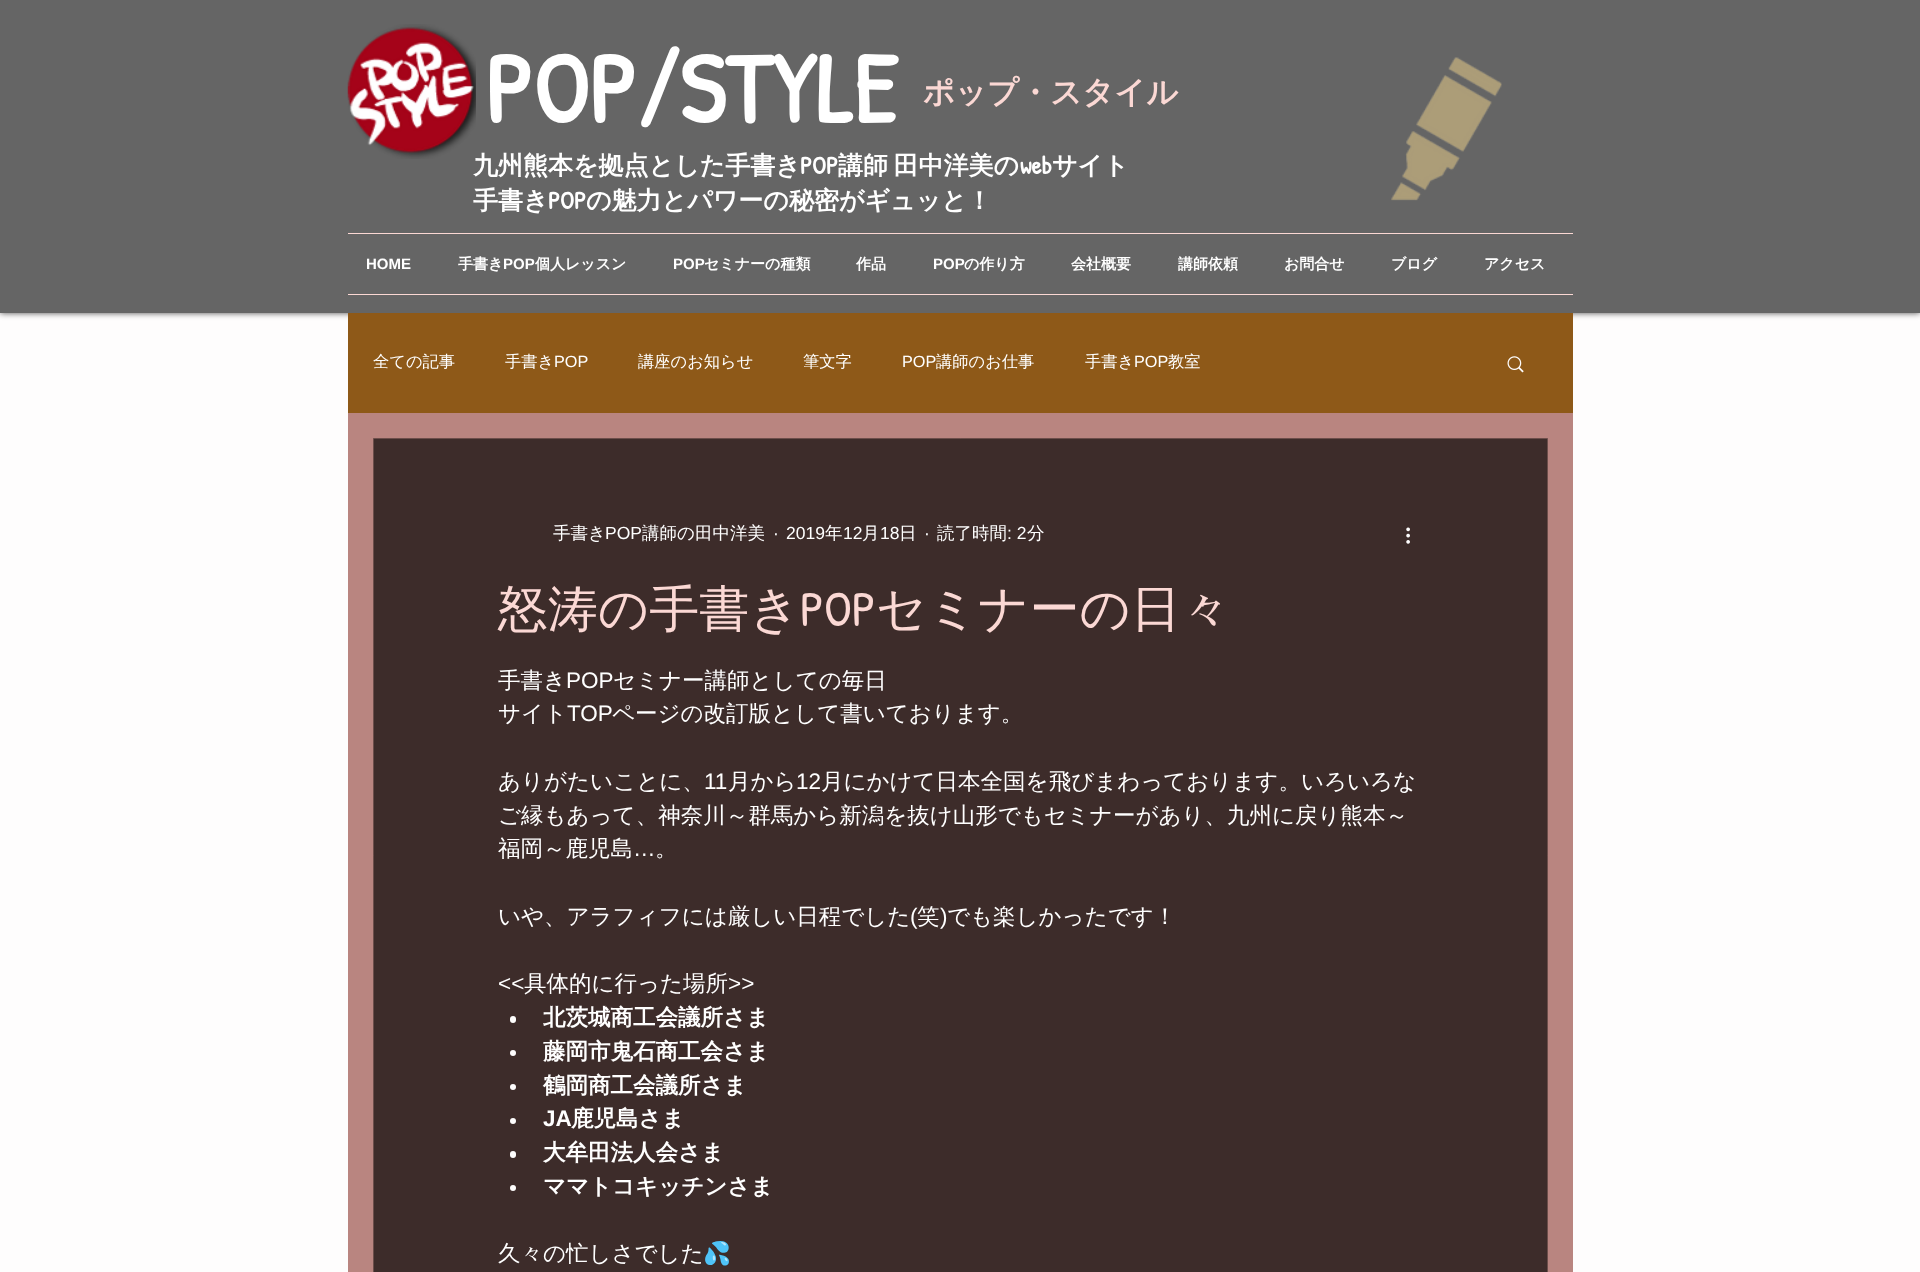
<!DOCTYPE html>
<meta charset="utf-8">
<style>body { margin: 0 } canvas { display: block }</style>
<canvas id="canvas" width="1920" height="1272"></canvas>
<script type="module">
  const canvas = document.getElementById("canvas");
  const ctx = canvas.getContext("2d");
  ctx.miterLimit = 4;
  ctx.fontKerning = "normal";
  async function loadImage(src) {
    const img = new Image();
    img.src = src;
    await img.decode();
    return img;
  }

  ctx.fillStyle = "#fefdfd";
  ctx.fillRect(0, 0, 1920, 1272);
  ctx.fillStyle = "rgba(0, 0, 0, 0.7)";
  ctx.filter = "blur(3px)";
  ctx.beginPath();
  ctx.rect(0, 0, 1920, 313);
  ctx.fill();
  ctx.filter = "none";
  ctx.fillStyle = "#656565";
  ctx.fillRect(0, 0, 1920, 313);
  ctx.drawImage(await loadImage("img1.png"), 347, 24, 129, 135);
  ctx.font = "bold 100px Patrick Hand";
  ctx.fillStyle = "#ffffff";
  ctx.fillText("POP/STYLE", 485, 123);
  ctx.font = "bold 31.25px WenQuanYi Zen Hei";
  ctx.fillStyle = "#fbd8d4";
  ctx.fillText("ポップ・スタイル", 923, 103);
  ctx.drawImage(await loadImage("img2.png"), 1391, 57, 111, 144);
  ctx.font = "bold 25px WenQuanYi Zen Hei";
  ctx.fillStyle = "#ffffff";
  ctx.fillText("九州熊本を拠点とした手書き", 473, 174);
  ctx.font = "bold 25px Patrick Hand";
  ctx.fillText("POP", 800, 174);
  ctx.wordSpacing = "-2px";
  ctx.font = "bold 25px WenQuanYi Zen Hei";
  ctx.fillText("講師 田中洋美の", 838, 174);
  ctx.wordSpacing = "0px";
  ctx.font = "bold 25px Patrick Hand";
  ctx.fillText("web", 1020, 174);
  ctx.font = "bold 25px WenQuanYi Zen Hei";
  ctx.fillText("サイト", 1052, 174);
  ctx.fillText("手書き", 473, 209);
  ctx.font = "bold 25px Patrick Hand";
  ctx.fillText("POP", 548, 209);
  ctx.font = "bold 25px WenQuanYi Zen Hei";
  ctx.fillText("の魅力とパワーの秘密がギュッと！", 586, 209);
  ctx.fillStyle = "#fbd8d4";
  ctx.fillRect(348, 233, 1225, 1);
  ctx.fillRect(348, 294, 1225, 1);
  ctx.font = "bold 15px Liberation Sans";
  ctx.fillStyle = "#ffffff";
  ctx.fillText("HOME", 366, 269);
  ctx.font = "bold 15px WenQuanYi Zen Hei";
  ctx.fillText("手書き", 458, 269);
  ctx.font = "bold 15px Liberation Sans";
  ctx.fillText("POP", 503, 269);
  ctx.font = "bold 15px WenQuanYi Zen Hei";
  ctx.fillText("個人レッスン", 535, 269);
  ctx.font = "bold 15px Liberation Sans";
  ctx.fillText("POP", 673, 269);
  ctx.font = "bold 15px WenQuanYi Zen Hei";
  ctx.fillText("セミナーの種類", 704, 269);
  ctx.fillText("作品", 856, 269);
  ctx.font = "bold 15px Liberation Sans";
  ctx.fillText("POP", 933, 269);
  ctx.font = "bold 15px WenQuanYi Zen Hei";
  ctx.fillText("の作り方", 964, 269);
  ctx.fillText("会社概要", 1071, 269);
  ctx.fillText("講師依頼", 1178, 269);
  ctx.fillText("お問合せ", 1284, 269);
  ctx.fillText("ブログ", 1391, 269);
  ctx.fillText("アクセス", 1484, 269);
  ctx.fillStyle = "#b98580";
  ctx.fillRect(348, 413, 1225, 859);
  ctx.fillStyle = "#8e5918";
  ctx.fillRect(348, 313, 1225, 100);
  ctx.font = "500 16.25px WenQuanYi Zen Hei";
  ctx.fillStyle = "#ffffff";
  ctx.fillText("全ての記事", 373, 367);
  ctx.fillText("手書き", 505, 367);
  ctx.font = "16.25px Liberation Sans";
  ctx.fillText("POP", 554, 367);
  ctx.font = "500 16.25px WenQuanYi Zen Hei";
  ctx.fillText("講座のお知らせ", 638, 367);
  ctx.fillText("筆文字", 803, 367);
  ctx.font = "16.25px Liberation Sans";
  ctx.fillText("POP", 902, 367);
  ctx.font = "500 16.25px WenQuanYi Zen Hei";
  ctx.fillText("講師のお仕事", 936, 367);
  ctx.fillText("手書き", 1085, 367);
  ctx.font = "16.25px Liberation Sans";
  ctx.fillText("POP", 1134, 367);
  ctx.font = "500 16.25px WenQuanYi Zen Hei";
  ctx.fillText("教室", 1168, 367);
  ctx.drawImage(await loadImage("img3.png"), 1507, 356, 17, 17);
  ctx.fillStyle = "#3d2c2a";
  ctx.beginPath();
  ctx.rect(373.5, 438.5, 1174, 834);
  ctx.fill();
  ctx.strokeStyle = "#6c4e4a";
  ctx.stroke();
  ctx.font = "500 17.5px WenQuanYi Zen Hei";
  ctx.fillStyle = "#ffffff";
  ctx.fillText("手書き", 553, 539);
  ctx.font = "17.5px Liberation Sans";
  ctx.fillText("POP", 605, 539);
  ctx.font = "500 17.5px WenQuanYi Zen Hei";
  ctx.fillText("講師の田中洋美", 642, 539);
  ctx.font = "17.5px Liberation Sans";
  ctx.fillText("·", 773, 539);
  ctx.fillText("2019", 786, 539);
  ctx.font = "500 17.5px WenQuanYi Zen Hei";
  ctx.fillText("年", 825, 539);
  ctx.font = "17.5px Liberation Sans";
  ctx.fillText("12", 843, 539);
  ctx.font = "500 17.5px WenQuanYi Zen Hei";
  ctx.fillText("月", 862, 539);
  ctx.font = "17.5px Liberation Sans";
  ctx.fillText("18", 880, 539);
  ctx.font = "500 17.5px WenQuanYi Zen Hei";
  ctx.fillText("日", 899, 539);
  ctx.font = "17.5px Liberation Sans";
  ctx.fillText("·", 924, 539);
  ctx.font = "500 17.5px WenQuanYi Zen Hei";
  ctx.fillText("読了時間", 937, 539);
  ctx.font = "17.5px Liberation Sans";
  ctx.fillText(": 2", 1007, 539);
  ctx.font = "500 17.5px WenQuanYi Zen Hei";
  ctx.fillText("分", 1027, 539);
  ctx.drawImage(await loadImage("img4.png"), 1406, 527, 4, 17);
  ctx.font = "500 50px WenQuanYi Zen Hei";
  ctx.fillStyle = "#fbd8d4";
  ctx.fillText("怒涛の手書き", 498, 626);
  ctx.font = "50px Patrick Hand";
  ctx.fillText("POP", 800, 626);
  ctx.font = "500 50px WenQuanYi Zen Hei";
  ctx.fillText("セミナーの日々", 876, 626);
  ctx.font = "500 22.5px WenQuanYi Zen Hei";
  ctx.fillStyle = "#ffffff";
  ctx.fillText("手書き", 498, 688);
  ctx.font = "22.5px Liberation Sans";
  ctx.fillText("POP", 566, 688);
  ctx.font = "500 22.5px WenQuanYi Zen Hei";
  ctx.fillText("セミナー講師としての毎日", 613, 688);
  ctx.fillText("サイト", 498, 721);
  ctx.font = "22.5px Liberation Sans";
  ctx.fillText("TOP", 567, 721);
  ctx.font = "500 22.5px WenQuanYi Zen Hei";
  ctx.fillText("ページの改訂版として書いております。", 612, 721);
  ctx.fillText("ありがたいことに、", 498, 789);
  ctx.font = "22.5px Liberation Sans";
  ctx.fillText("11", 704, 789);
  ctx.font = "500 22.5px WenQuanYi Zen Hei";
  ctx.fillText("月から", 728, 789);
  ctx.font = "22.5px Liberation Sans";
  ctx.fillText("12", 796, 789);
  ctx.font = "500 22.5px WenQuanYi Zen Hei";
  ctx.fillText("月にかけて日本全国を飛びまわっております。いろいろな", 821, 789);
  ctx.fillText("ご縁もあって、神奈川～群馬から新潟を抜け山形でもセミナーがあり、九州に戻り熊本～", 498, 823);
  ctx.fillText("福岡～鹿児島", 498, 856);
  ctx.font = "22.5px Liberation Sans";
  ctx.fillText("…", 633, 856);
  ctx.font = "500 22.5px WenQuanYi Zen Hei";
  ctx.fillText("。", 655, 856);
  ctx.fillText("いや、アラフィフには厳しい日程でした", 498, 924);
  ctx.font = "22.5px Liberation Sans";
  ctx.fillText("(", 910, 924);
  ctx.font = "500 22.5px WenQuanYi Zen Hei";
  ctx.fillText("笑", 917, 924);
  ctx.font = "22.5px Liberation Sans";
  ctx.fillText(")", 940, 924);
  ctx.font = "500 22.5px WenQuanYi Zen Hei";
  ctx.fillText("でも楽しかったです！", 947, 924);
  ctx.font = "22.5px Liberation Sans";
  ctx.fillText("<<", 498, 991);
  ctx.font = "500 22.5px WenQuanYi Zen Hei";
  ctx.fillText("具体的に行った場所", 524, 991);
  ctx.font = "22.5px Liberation Sans";
  ctx.fillText(">>", 728, 991);
  ctx.fillStyle = "#fefdfd";
  ctx.beginPath();
  ctx.roundRect(510, 1016, 6, 7, 3);
  ctx.fill();
  ctx.font = "bold 22.5px WenQuanYi Zen Hei";
  ctx.fillStyle = "#ffffff";
  ctx.fillText("北茨城商工会議所さま", 543, 1025);
  ctx.fillStyle = "#fefdfd";
  ctx.beginPath();
  ctx.arc(513, 1053, 3, 0, Math.PI * 2);
  ctx.fill();
  ctx.fillStyle = "#ffffff";
  ctx.fillText("藤岡市鬼石商工会さま", 543, 1059);
  ctx.fillStyle = "#fefdfd";
  ctx.beginPath();
  ctx.arc(513, 1087, 3, 0, Math.PI * 2);
  ctx.fill();
  ctx.fillStyle = "#ffffff";
  ctx.fillText("鶴岡商工会議所さま", 543, 1093);
  ctx.fillStyle = "#fefdfd";
  ctx.beginPath();
  ctx.arc(513, 1121, 3, 0, Math.PI * 2);
  ctx.fill();
  ctx.font = "bold 22.5px Liberation Sans";
  ctx.fillStyle = "#ffffff";
  ctx.fillText("JA", 543, 1126);
  ctx.font = "bold 22.5px WenQuanYi Zen Hei";
  ctx.fillText("鹿児島さま", 571, 1126);
  ctx.fillStyle = "#fefdfd";
  ctx.beginPath();
  ctx.roundRect(510, 1151, 6, 7, 3);
  ctx.fill();
  ctx.fillStyle = "#ffffff";
  ctx.fillText("大牟田法人会さま", 543, 1160);
  ctx.fillStyle = "#fefdfd";
  ctx.beginPath();
  ctx.arc(513, 1188, 3, 0, Math.PI * 2);
  ctx.fill();
  ctx.fillStyle = "#ffffff";
  ctx.fillText("ママトコキッチンさま", 543, 1194);
  ctx.font = "500 22.5px WenQuanYi Zen Hei";
  ctx.fillText("久々の忙しさでした", 498, 1261);
  ctx.font = "22.5px Noto Color Emoji";
  ctx.fillText("💦", 703, 1261);
</script>
